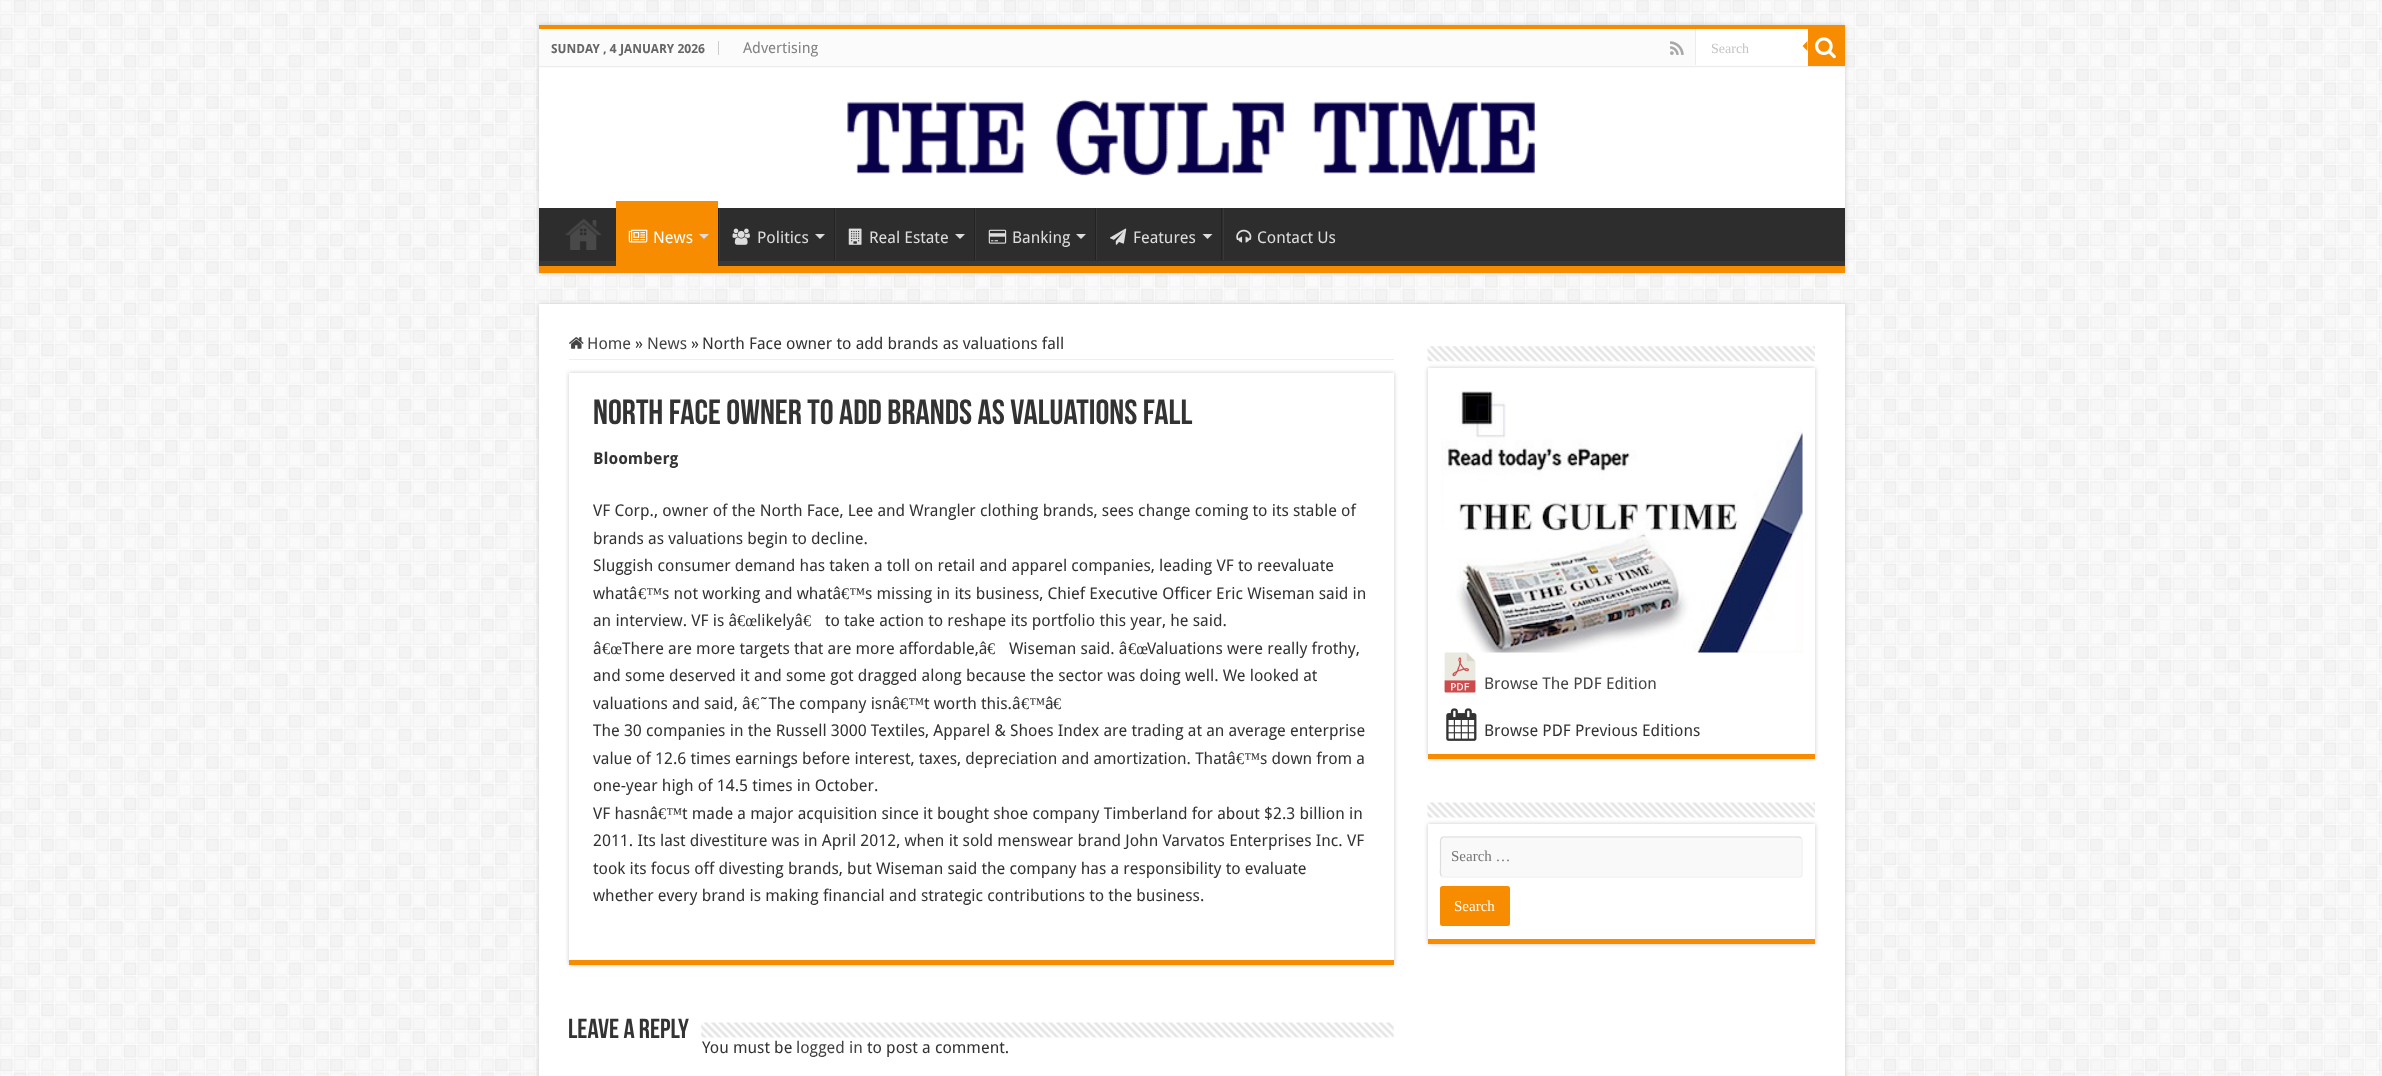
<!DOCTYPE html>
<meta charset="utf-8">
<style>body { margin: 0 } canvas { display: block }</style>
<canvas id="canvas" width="2382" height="1076"></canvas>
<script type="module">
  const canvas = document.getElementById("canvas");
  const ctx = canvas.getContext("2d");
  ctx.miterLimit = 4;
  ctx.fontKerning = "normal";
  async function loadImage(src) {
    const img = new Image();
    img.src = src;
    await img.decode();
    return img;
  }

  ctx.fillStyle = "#ffffff";
  ctx.fillRect(0, 0, 2382, 1076);
  ctx.drawImage(await loadImage("img1.png"), 0, 0, 2382, 1076);
  ctx.fillStyle = "#cacaca";
  ctx.filter = "blur(2px)";
  ctx.beginPath();
  ctx.rect(539, 25, 1306, 248);
  ctx.fill();
  ctx.filter = "none";
  ctx.fillStyle = "#ffffff";
  ctx.fillRect(539, 68, 1306, 140);
  ctx.fillStyle = "#f88c00";
  ctx.fillRect(539, 25, 1306, 4);
  ctx.fillStyle = "#fbfbfb";
  ctx.fillRect(539, 29, 1306, 39);
  ctx.fillStyle = "#ececec";
  ctx.fillRect(539, 66, 1306, 1);
  ctx.fillStyle = "#cccccc";
  ctx.fillRect(718, 41, 1, 14);
  ctx.font = "bold 12.5px Droid Sans";
  ctx.fillStyle = "#666666";
  ctx.fillText("SUNDAY , 4 JANUARY 2026", 551, 53);
  ctx.font = "15px Droid Sans";
  ctx.fillStyle = "#838383";
  ctx.fillText("Advertising", 743, 53);
  ctx.drawImage(await loadImage("img2.png"), 1670, 41, 14, 14);
  ctx.fillStyle = "#ffffff";
  ctx.fillRect(1696, 29, 112, 36);
  ctx.fillStyle = "#ececec";
  ctx.fillRect(1695, 29, 1, 36);
  ctx.font = "14px Liberation Serif";
  ctx.fillStyle = "#c5c5c5";
  ctx.fillText("Search", 1711, 53);
  ctx.fillStyle = "#f88c00";
  ctx.fillRect(1808, 29, 37, 37);
  ctx.drawImage(await loadImage("img3.png"), 1815, 37, 21, 22);
  ctx.beginPath();
  ctx.moveTo(1807.5, 41);
  ctx.lineTo(1807.5, 51);
  ctx.lineTo(1802.5, 46);
  ctx.closePath();
  ctx.fill();
  ctx.drawImage(await loadImage("img4.png"), 847, 99, 688, 77);
  ctx.fillStyle = "#2d2d2d";
  ctx.fillRect(539, 208, 1306, 53);
  ctx.save();
  ctx.beginPath();
  ctx.rect(539, 208, 1306, 58);
  ctx.clip();
  ctx.fillStyle = "#393939";
  ctx.beginPath();
  ctx.moveTo(415, 84);
  ctx.lineTo(1969, 84);
  ctx.lineTo(1969, 390);
  ctx.lineTo(415, 390);
  ctx.closePath();
  ctx.moveTo(538, 200);
  ctx.lineTo(1844, 200);
  ctx.bezierCurveTo(1844, 200, 1845, 201, 1845, 201);
  ctx.lineTo(1845, 260);
  ctx.bezierCurveTo(1845, 261, 1844, 261, 1844, 261);
  ctx.lineTo(538, 261);
  ctx.bezierCurveTo(537, 261, 536, 261, 536, 260);
  ctx.lineTo(536, 201);
  ctx.bezierCurveTo(536, 201, 537, 200, 538, 200);
  ctx.closePath();
  ctx.fill("evenodd");
  ctx.restore();
  ctx.fillStyle = "#f88c00";
  ctx.fillRect(539, 266, 1306, 7);
  ctx.drawImage(await loadImage("img5.png"), 565, 218, 37, 32);
  ctx.fillRect(616, 201, 102, 65);
  ctx.drawImage(await loadImage("img6.png"), 628, 229, 20, 14);
  ctx.font = "16.25px Droid Sans";
  ctx.fillStyle = "#ffffff";
  ctx.fillText("News", 653, 243);
  ctx.fillStyle = "#dddddd";
  ctx.beginPath();
  ctx.moveTo(699, 234);
  ctx.lineTo(709, 234);
  ctx.lineTo(704, 239);
  ctx.closePath();
  ctx.fill();
  ctx.fillStyle = "#222222";
  ctx.fillRect(718, 208, 1, 52);
  ctx.fillStyle = "#383838";
  ctx.fillRect(719, 208, 1, 52);
  ctx.drawImage(await loadImage("img7.png"), 732, 228, 18, 17);
  ctx.fillStyle = "#dddddd";
  ctx.fillText("Politics", 757, 243);
  ctx.beginPath();
  ctx.moveTo(815, 234);
  ctx.lineTo(825, 234);
  ctx.lineTo(820, 239);
  ctx.closePath();
  ctx.fill();
  ctx.fillStyle = "#222222";
  ctx.fillRect(834, 208, 1, 52);
  ctx.fillStyle = "#383838";
  ctx.fillRect(835, 208, 1, 52);
  ctx.drawImage(await loadImage("img8.png"), 848, 228, 14, 17);
  ctx.fillStyle = "#dddddd";
  ctx.fillText("Real Estate", 869, 243);
  ctx.beginPath();
  ctx.moveTo(955, 234);
  ctx.lineTo(965, 234);
  ctx.lineTo(960, 239);
  ctx.closePath();
  ctx.fill();
  ctx.fillStyle = "#222222";
  ctx.fillRect(974, 208, 1, 52);
  ctx.fillStyle = "#383838";
  ctx.fillRect(975, 208, 1, 52);
  ctx.drawImage(await loadImage("img9.png"), 988, 229, 19, 15);
  ctx.fillStyle = "#dddddd";
  ctx.fillText("Banking", 1012, 243);
  ctx.beginPath();
  ctx.moveTo(1076, 234);
  ctx.lineTo(1086, 234);
  ctx.lineTo(1081, 239);
  ctx.closePath();
  ctx.fill();
  ctx.fillStyle = "#222222";
  ctx.fillRect(1095, 208, 1, 52);
  ctx.fillStyle = "#383838";
  ctx.fillRect(1096, 208, 1, 52);
  ctx.drawImage(await loadImage("img10.png"), 1110, 228, 17, 17);
  ctx.fillStyle = "#dddddd";
  ctx.fillText("Features", 1133, 243);
  ctx.beginPath();
  ctx.moveTo(1202.5, 234);
  ctx.lineTo(1212.5, 234);
  ctx.lineTo(1207.5, 239);
  ctx.closePath();
  ctx.fill();
  ctx.fillStyle = "#222222";
  ctx.fillRect(1221, 208, 1, 52);
  ctx.fillStyle = "#383838";
  ctx.fillRect(1223, 208, 1, 52);
  ctx.drawImage(await loadImage("img11.png"), 1236, 229, 16, 14);
  ctx.fillStyle = "#dddddd";
  ctx.fillText("Contact Us", 1257, 243);
  ctx.fillStyle = "#cacaca";
  ctx.filter = "blur(2px)";
  ctx.beginPath();
  ctx.rect(539, 304, 1306, 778);
  ctx.fill();
  ctx.filter = "none";
  ctx.fillStyle = "#ffffff";
  ctx.fillRect(539, 304, 1306, 772);
  ctx.fillStyle = "#eeeeee";
  ctx.fillRect(569, 359, 825, 1);
  ctx.drawImage(await loadImage("img12.png"), 569, 337, 15, 12);
  ctx.fillStyle = "#444444";
  ctx.fillText("Home", 587, 349);
  ctx.fillStyle = "#333333";
  ctx.fillText("»", 635, 349);
  ctx.fillStyle = "#444444";
  ctx.fillText("News", 647, 349);
  ctx.fillStyle = "#333333";
  ctx.fillText("»", 691, 349);
  ctx.fillText("North Face owner to add brands as valuations fall", 702, 349);
  ctx.fillStyle = "#cacaca";
  ctx.filter = "blur(2px)";
  ctx.beginPath();
  ctx.rect(569, 373, 825, 592);
  ctx.fill();
  ctx.filter = "none";
  ctx.fillStyle = "#ffffff";
  ctx.fillRect(569, 373, 825, 587);
  ctx.fillStyle = "#f88c00";
  ctx.fillRect(569, 960, 825, 5);
  ctx.font = "bold 35px Bebas Neue";
  ctx.fillStyle = "#333333";
  ctx.fillText("North Face owner to add brands as valuations fall", 593, 424);
  ctx.font = "bold 16.25px Droid Sans";
  ctx.fillText("Bloomberg", 593, 464);
  ctx.font = "16.25px Droid Sans";
  ctx.fillText("VF Corp., owner of the North Face, Lee and Wrangler clothing brands, sees change coming to its stable of", 593, 516);
  ctx.fillText("brands as valuations begin to decline.", 593, 544);
  ctx.fillText("Sluggish consumer demand has taken a toll on retail and apparel companies, leading VF to reevaluate", 593, 571);
  ctx.fillText("whatâ", 593, 599);
  ctx.font = "16.25px Liberation Serif";
  ctx.fillText("€™", 638, 599);
  ctx.font = "16.25px Droid Sans";
  ctx.fillText("s not working and whatâ", 662, 599);
  ctx.font = "16.25px Liberation Serif";
  ctx.fillText("€™", 841, 599);
  ctx.font = "16.25px Droid Sans";
  ctx.fillText("s missing in its business, Chief Executive Officer Eric Wiseman said in", 865, 599);
  ctx.fillText("an interview. VF is â", 593, 626);
  ctx.font = "16.25px Liberation Serif";
  ctx.fillText("€œ", 737, 626);
  ctx.font = "16.25px Droid Sans";
  ctx.fillText("likelyâ", 757, 626);
  ctx.font = "16.25px Liberation Serif";
  ctx.fillText("€", 803, 626);
  ctx.font = "16.25px Droid Sans";
  ctx.fillText("to take action to reshape its portfolio this year, he said.", 825, 626);
  ctx.fillText("â", 593, 654);
  ctx.font = "16.25px Liberation Serif";
  ctx.fillText("€œ", 602, 654);
  ctx.font = "16.25px Droid Sans";
  ctx.fillText("There are more targets that are more affordable,â", 622, 654);
  ctx.font = "16.25px Liberation Serif";
  ctx.fillText("€", 987, 654);
  ctx.font = "16.25px Droid Sans";
  ctx.fillText("Wiseman said. â", 1009, 654);
  ctx.font = "16.25px Liberation Serif";
  ctx.fillText("€œ", 1128, 654);
  ctx.font = "16.25px Droid Sans";
  ctx.fillText("Valuations were really frothy,", 1147, 654);
  ctx.fillText("and some deserved it and some got dragged along because the sector was doing well. We looked at", 593, 681);
  ctx.fillText("valuations and said, â", 593, 709);
  ctx.font = "16.25px Liberation Serif";
  ctx.fillText("€", 751, 709);
  ctx.font = "16.25px Droid Sans";
  ctx.fillText("˜The company isnâ", 759, 709);
  ctx.font = "16.25px Liberation Serif";
  ctx.fillText("€™", 900, 709);
  ctx.font = "16.25px Droid Sans";
  ctx.fillText("t worth this.â", 924, 709);
  ctx.font = "16.25px Liberation Serif";
  ctx.fillText("€™", 1021, 709);
  ctx.font = "16.25px Droid Sans";
  ctx.fillText("â", 1045, 709);
  ctx.font = "16.25px Liberation Serif";
  ctx.fillText("€", 1053, 709);
  ctx.font = "16.25px Droid Sans";
  ctx.fillText("The 30 companies in the Russell 3000 Textiles, Apparel & Shoes Index are trading at an average enterprise", 593, 736);
  ctx.fillText("value of 12.6 times earnings before interest, taxes, depreciation and amortization. Thatâ", 593, 764);
  ctx.font = "16.25px Liberation Serif";
  ctx.fillText("€™", 1236, 764);
  ctx.font = "16.25px Droid Sans";
  ctx.fillText("s down from a", 1260, 764);
  ctx.fillText("one-year high of 14.5 times in October.", 593, 791);
  ctx.fillText("VF hasnâ", 593, 819);
  ctx.font = "16.25px Liberation Serif";
  ctx.fillText("€™", 658, 819);
  ctx.font = "16.25px Droid Sans";
  ctx.fillText("t made a major acquisition since it bought shoe company Timberland for about $2.3 billion in", 682, 819);
  ctx.fillText("2011. Its last divestiture was in April 2012, when it sold menswear brand John Varvatos Enterprises Inc. VF", 593, 846);
  ctx.fillText("took its focus off divesting brands, but Wiseman said the company has a responsibility to evaluate", 593, 874);
  ctx.fillText("whether every brand is making financial and strategic contributions to the business.", 593, 901);
  ctx.font = "bold 27.5px Bebas Neue";
  ctx.fillText("Leave a Reply", 568, 1038);
  ctx.drawImage(await loadImage("img13.png"), 701, 1022, 693, 16);
  ctx.font = "16.25px Droid Sans";
  ctx.fillText("You must be", 702, 1053);
  ctx.fillStyle = "#444444";
  ctx.fillText("logged in", 796, 1053);
  ctx.fillStyle = "#333333";
  ctx.fillText("to post a comment.", 867, 1053);
  ctx.fillStyle = "#cacaca";
  ctx.filter = "blur(2px)";
  ctx.beginPath();
  ctx.rect(1428, 368, 387, 391);
  ctx.fill();
  ctx.filter = "none";
  ctx.drawImage(await loadImage("img14.png"), 1427, 346, 388, 16);
  ctx.fillStyle = "#ffffff";
  ctx.fillRect(1428, 368, 387, 386);
  ctx.fillStyle = "#f88c00";
  ctx.fillRect(1428, 754, 387, 5);
  ctx.drawImage(await loadImage("img15.png"), 1441, 391, 362, 262);
  ctx.drawImage(await loadImage("img16.png"), 1444, 652, 32, 41);
  ctx.fillStyle = "#444444";
  ctx.fillText("Browse The PDF Edition", 1484, 689);
  ctx.drawImage(await loadImage("img17.png"), 1446, 708, 31, 33);
  ctx.fillStyle = "#333333";
  ctx.fillText("Browse PDF Previous Editions", 1484, 736);
  ctx.fillStyle = "#cacaca";
  ctx.filter = "blur(2px)";
  ctx.beginPath();
  ctx.rect(1428, 824, 387, 120);
  ctx.fill();
  ctx.filter = "none";
  ctx.drawImage(await loadImage("img18.png"), 1427, 802, 388, 16);
  ctx.fillStyle = "#ffffff";
  ctx.fillRect(1428, 824, 387, 115);
  ctx.fillStyle = "#f88c00";
  ctx.fillRect(1428, 939, 387, 5);
  ctx.fillStyle = "#f9f9f9";
  ctx.beginPath();
  ctx.roundRect(1440, 836, 363, 42, 4);
  ctx.fill();
  ctx.beginPath();
  ctx.moveTo(1801, 838);
  ctx.bezierCurveTo(1803, 839.5, 1802, 844, 1802, 845.5);
  ctx.lineTo(1802, 868);
  ctx.bezierCurveTo(1802, 870.5, 1803, 877, 1799, 877);
  ctx.lineTo(1443.5, 877);
  ctx.lineTo(1441.5, 876);
  ctx.strokeStyle = "#f1f1f1";
  ctx.lineWidth = 1.2;
  ctx.stroke();
  ctx.beginPath();
  ctx.moveTo(1441.5, 876);
  ctx.bezierCurveTo(1439.5, 874, 1440.5, 869.5, 1440.5, 868);
  ctx.lineTo(1440.5, 845.5);
  ctx.bezierCurveTo(1440.5, 843.5, 1439.5, 837, 1444, 837);
  ctx.lineTo(1799, 837);
  ctx.lineTo(1801, 838);
  ctx.strokeStyle = "#dddddd";
  ctx.stroke();
  ctx.font = "15px Liberation Serif";
  ctx.fillStyle = "#757575";
  ctx.fillText("Search …", 1451, 861);
  ctx.fillStyle = "#f88c00";
  ctx.beginPath();
  ctx.roundRect(1440, 886, 70, 40, 2.5);
  ctx.fill();
  ctx.fillStyle = "#ffffff";
  ctx.fillText("Search", 1454, 911);
</script>
